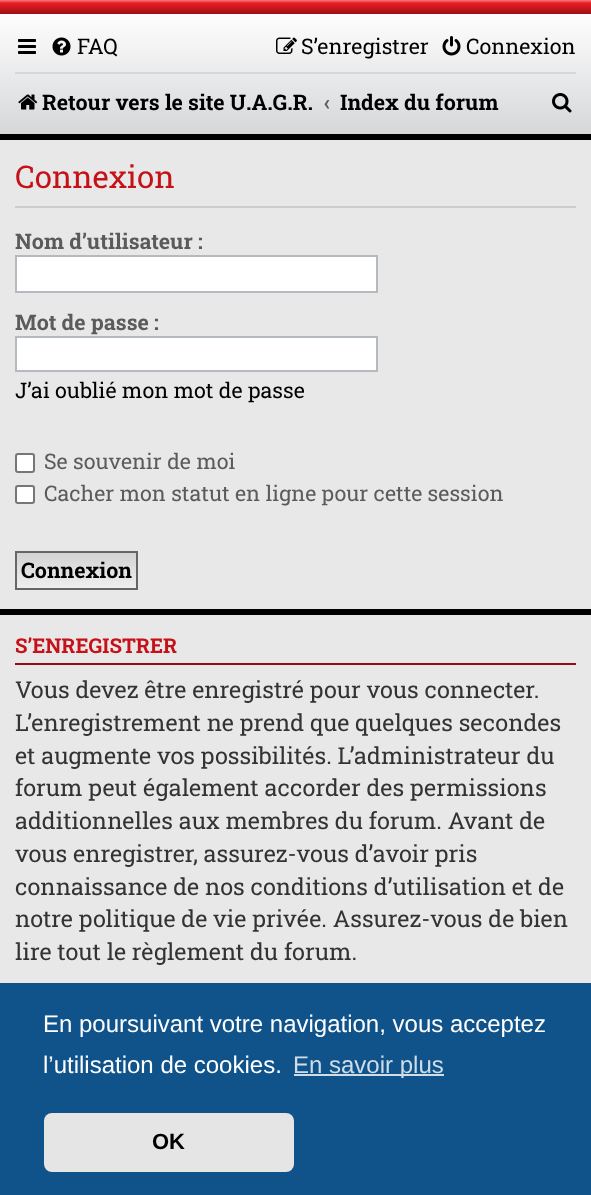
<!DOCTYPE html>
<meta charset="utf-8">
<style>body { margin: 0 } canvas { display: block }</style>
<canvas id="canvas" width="591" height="1195"></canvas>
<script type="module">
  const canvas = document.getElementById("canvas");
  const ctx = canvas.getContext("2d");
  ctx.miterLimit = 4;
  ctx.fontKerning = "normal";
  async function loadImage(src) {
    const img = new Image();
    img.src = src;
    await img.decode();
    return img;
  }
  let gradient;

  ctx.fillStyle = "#000000";
  ctx.fillRect(0, 0, 591, 1195);
  gradient = ctx.createLinearGradient(296, 0, 296, 15);
  gradient.addColorStop(0, "#f47c80");
  gradient.addColorStop(0.2, "#eb1e24");
  gradient.addColorStop(1, "#960d12");
  ctx.fillStyle = gradient;
  ctx.fillRect(0, 0, 591, 14);
  gradient = ctx.createLinearGradient(296, 13, 296, 134);
  gradient.addColorStop(0, "#fefefe");
  gradient.addColorStop(1, "#d6d7d9");
  ctx.fillStyle = gradient;
  ctx.fillRect(0, 14, 591, 120);
  ctx.drawImage(await loadImage("img1.png"), 18, 39, 18, 15);
  ctx.drawImage(await loadImage("img2.png"), 52, 37, 19, 19);
  ctx.font = "21.45px Roboto Slab";
  ctx.fillStyle = "#000000";
  ctx.fillText("FAQ", 77, 54);
  ctx.drawImage(await loadImage("img3.png"), 276, 37, 21, 17);
  ctx.fillText("S’enregistrer", 301, 54);
  ctx.drawImage(await loadImage("img4.png"), 442, 36, 19, 20);
  ctx.fillText("Connexion", 466, 54);
  ctx.fillStyle = "#d6d7d9";
  ctx.fillRect(15, 72, 561, 2);
  ctx.drawImage(await loadImage("img5.png"), 18, 94, 20, 16);
  ctx.font = "bold 21.45px Roboto Slab";
  ctx.fillStyle = "#000000";
  ctx.fillText("Retour vers le site U.A.G.R.", 42, 110);
  ctx.fillStyle = "#5b5b5b";
  ctx.fillText("‹", 324, 110);
  ctx.fillStyle = "#000000";
  ctx.fillText("Index du forum", 340, 110);
  ctx.drawImage(await loadImage("img6.png"), 552, 93, 20, 20);
  ctx.fillStyle = "#e8e8e8";
  ctx.fillRect(0, 140, 591, 469);
  ctx.fillStyle = "#cccccc";
  ctx.fillRect(15, 206, 561, 2);
  ctx.font = "31.25px Roboto Slab";
  ctx.fillStyle = "#c51117";
  ctx.fillText("Connexion", 15, 188);
  ctx.font = "bold 21.45px Roboto Slab";
  ctx.fillStyle = "#5b5b5b";
  ctx.fillText("Nom d’utilisateur :", 15, 249);
  ctx.fillStyle = "#ffffff";
  ctx.beginPath();
  ctx.rect(16, 256, 361, 36);
  ctx.fill();
  ctx.strokeStyle = "#b4bac0";
  ctx.lineWidth = 2;
  ctx.stroke();
  ctx.fillStyle = "#5b5b5b";
  ctx.fillText("Mot de passe :", 15, 330);
  ctx.fillStyle = "#ffffff";
  ctx.beginPath();
  ctx.rect(16, 337, 361, 34);
  ctx.fill();
  ctx.stroke();
  ctx.font = "21.45px Roboto Slab";
  ctx.fillStyle = "#000000";
  ctx.fillText("J’ai oublié mon mot de passe", 15, 398);
  ctx.fillStyle = "#ffffff";
  ctx.beginPath();
  ctx.roundRect(16, 454, 18, 18, 2);
  ctx.fill();
  ctx.strokeStyle = "#767676";
  ctx.stroke();
  ctx.fillStyle = "#5b5b5b";
  ctx.fillText("Se souvenir de moi", 44, 469);
  ctx.fillStyle = "#ffffff";
  ctx.beginPath();
  ctx.roundRect(16, 486, 18, 17, 2);
  ctx.fill();
  ctx.stroke();
  ctx.fillStyle = "#5b5b5b";
  ctx.fillText("Cacher mon statut en ligne pour cette session", 44, 501);
  gradient = ctx.createLinearGradient(77, 552, 77, 588);
  gradient.addColorStop(0, "#d2d2d2");
  gradient.addColorStop(1, "#efefef");
  ctx.fillStyle = gradient;
  ctx.fillRect(17, 553, 119, 35);
  ctx.strokeStyle = "#666666";
  ctx.strokeRect(16, 552, 121, 37);
  ctx.font = "bold 21.45px Roboto Slab";
  ctx.fillStyle = "#000000";
  ctx.fillText("Connexion", 21, 578);
  ctx.fillStyle = "#e8e8e8";
  ctx.fillRect(0, 615, 591, 368);
  ctx.fillStyle = "#960d12";
  ctx.fillRect(15, 663, 561, 2);
  ctx.font = "bold 20.5px Roboto Slab";
  ctx.fillStyle = "#c51117";
  ctx.fillText("S’ENREGISTRER", 15, 653);
  ctx.font = "23.4px Roboto Slab";
  ctx.fillStyle = "#333333";
  ctx.fillText("Vous devez être enregistré pour vous connecter.", 15, 698);
  ctx.fillText("L’enregistrement ne prend que quelques secondes", 15, 731);
  ctx.fillText("et augmente vos possibilités. L’administrateur du", 15, 764);
  ctx.fillText("forum peut également accorder des permissions", 15, 796);
  ctx.fillText("additionnelles aux membres du forum. Avant de", 15, 829);
  ctx.fillText("vous enregistrer, assurez-vous d’avoir pris", 15, 862);
  ctx.fillText("connaissance de nos conditions d’utilisation et de", 15, 895);
  ctx.fillText("notre politique de vie privée. Assurez-vous de bien", 15, 927);
  ctx.fillText("lire tout le règlement du forum.", 15, 960);
  ctx.fillStyle = "#0f538a";
  ctx.fillRect(0, 983, 591, 212);
  ctx.font = "24px Liberation Sans";
  ctx.fillStyle = "#ffffff";
  ctx.fillText("En poursuivant votre navigation, vous acceptez", 43, 1032);
  ctx.fillText("l’utilisation de cookies.", 43, 1073);
  ctx.fillStyle = "#cfdde8";
  ctx.fillRect(294, 1074, 150, 2);
  ctx.fillText("En savoir plus", 293, 1073);
  ctx.fillStyle = "#e5e5e5";
  ctx.beginPath();
  ctx.roundRect(44, 1113, 250, 59, 8);
  ctx.fill();
  ctx.font = "bold 22px Liberation Sans";
  ctx.fillStyle = "#000000";
  ctx.fillText("OK", 152, 1149);
</script>
